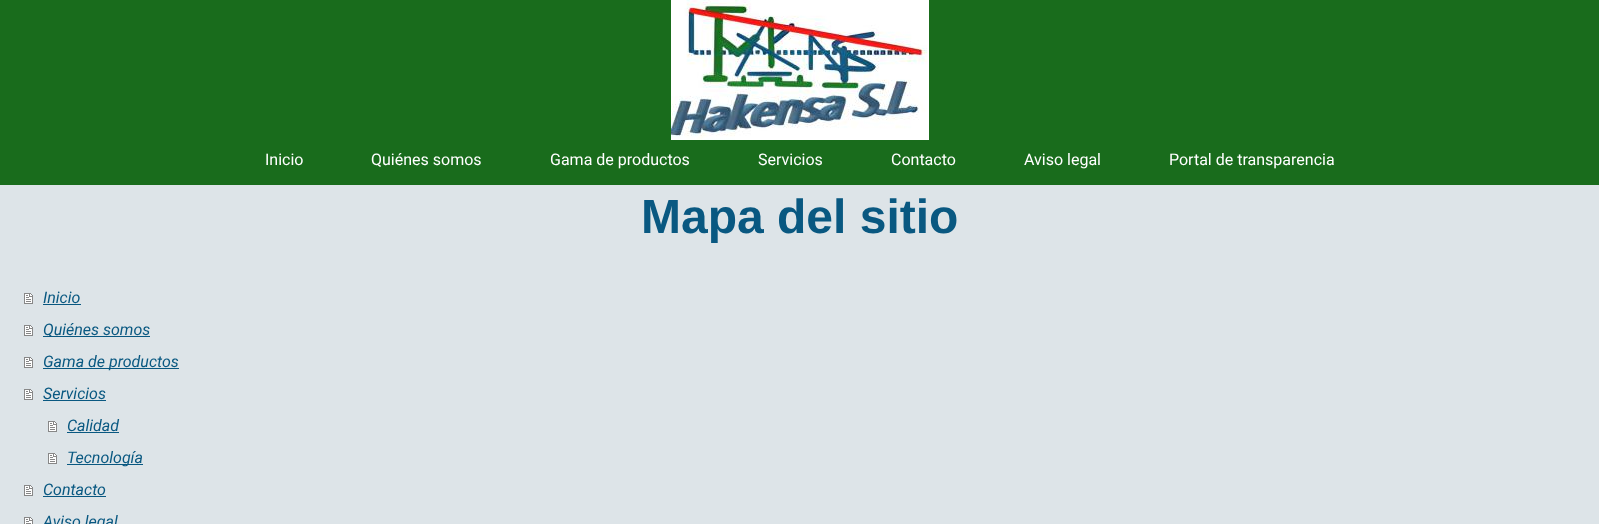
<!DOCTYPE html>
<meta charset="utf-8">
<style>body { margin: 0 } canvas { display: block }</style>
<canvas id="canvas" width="1599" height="524"></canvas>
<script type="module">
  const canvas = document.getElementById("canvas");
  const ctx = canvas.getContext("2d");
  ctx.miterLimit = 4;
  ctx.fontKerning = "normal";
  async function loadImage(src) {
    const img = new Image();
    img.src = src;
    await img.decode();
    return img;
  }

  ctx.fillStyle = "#196c1c";
  ctx.fillRect(0, 0, 1599, 524);
  ctx.drawImage(await loadImage("img1.png"), 671, 0, 258, 140);
  ctx.font = "16px Roboto";
  ctx.fillStyle = "#ffffff";
  ctx.fillText("Inicio", 265, 165);
  ctx.fillText("Quiénes somos", 371, 165);
  ctx.fillText("Gama de productos", 550, 165);
  ctx.fillText("Servicios", 758, 165);
  ctx.fillText("Contacto", 891, 165);
  ctx.fillText("Aviso legal", 1024, 165);
  ctx.fillText("Portal de transparencia", 1169, 165);
  ctx.fillStyle = "#dde4e8";
  ctx.fillRect(0, 185, 1599, 339);
  ctx.font = "bold 48px Liberation Sans";
  ctx.fillStyle = "#095881";
  ctx.fillText("Mapa del sitio", 641, 233);
  ctx.drawImage(await loadImage("img2.png"), 24, 293, 9, 11);
  ctx.font = "italic 16px Roboto";
  ctx.fillText("Inicio", 43, 303);
  ctx.fillRect(43, 304, 38, 1);
  ctx.drawImage(await loadImage("img2.png"), 24, 325, 9, 11);
  ctx.fillRect(43, 336, 107, 1);
  ctx.fillText("Quiénes somos", 43, 335);
  ctx.drawImage(await loadImage("img2.png"), 24, 357, 9, 11);
  ctx.fillRect(43, 368, 136, 1);
  ctx.fillText("Gama de productos", 43, 367);
  ctx.drawImage(await loadImage("img2.png"), 24, 389, 9, 11);
  ctx.fillText("Servicios", 43, 399);
  ctx.fillRect(43, 400, 63, 1);
  ctx.drawImage(await loadImage("img2.png"), 48, 421, 9, 11);
  ctx.fillText("Calidad", 67, 431);
  ctx.fillRect(67, 432, 52, 1);
  ctx.drawImage(await loadImage("img2.png"), 48, 453, 9, 11);
  ctx.fillRect(67, 464, 76, 1);
  ctx.fillText("Tecnología", 67, 463);
  ctx.drawImage(await loadImage("img2.png"), 24, 485, 9, 11);
  ctx.fillText("Contacto", 43, 495);
  ctx.fillRect(43, 496, 63, 1);
  ctx.drawImage(await loadImage("img3.png"), 24, 517, 9, 7);
  ctx.fillText("Aviso legal", 43, 527);
</script>
